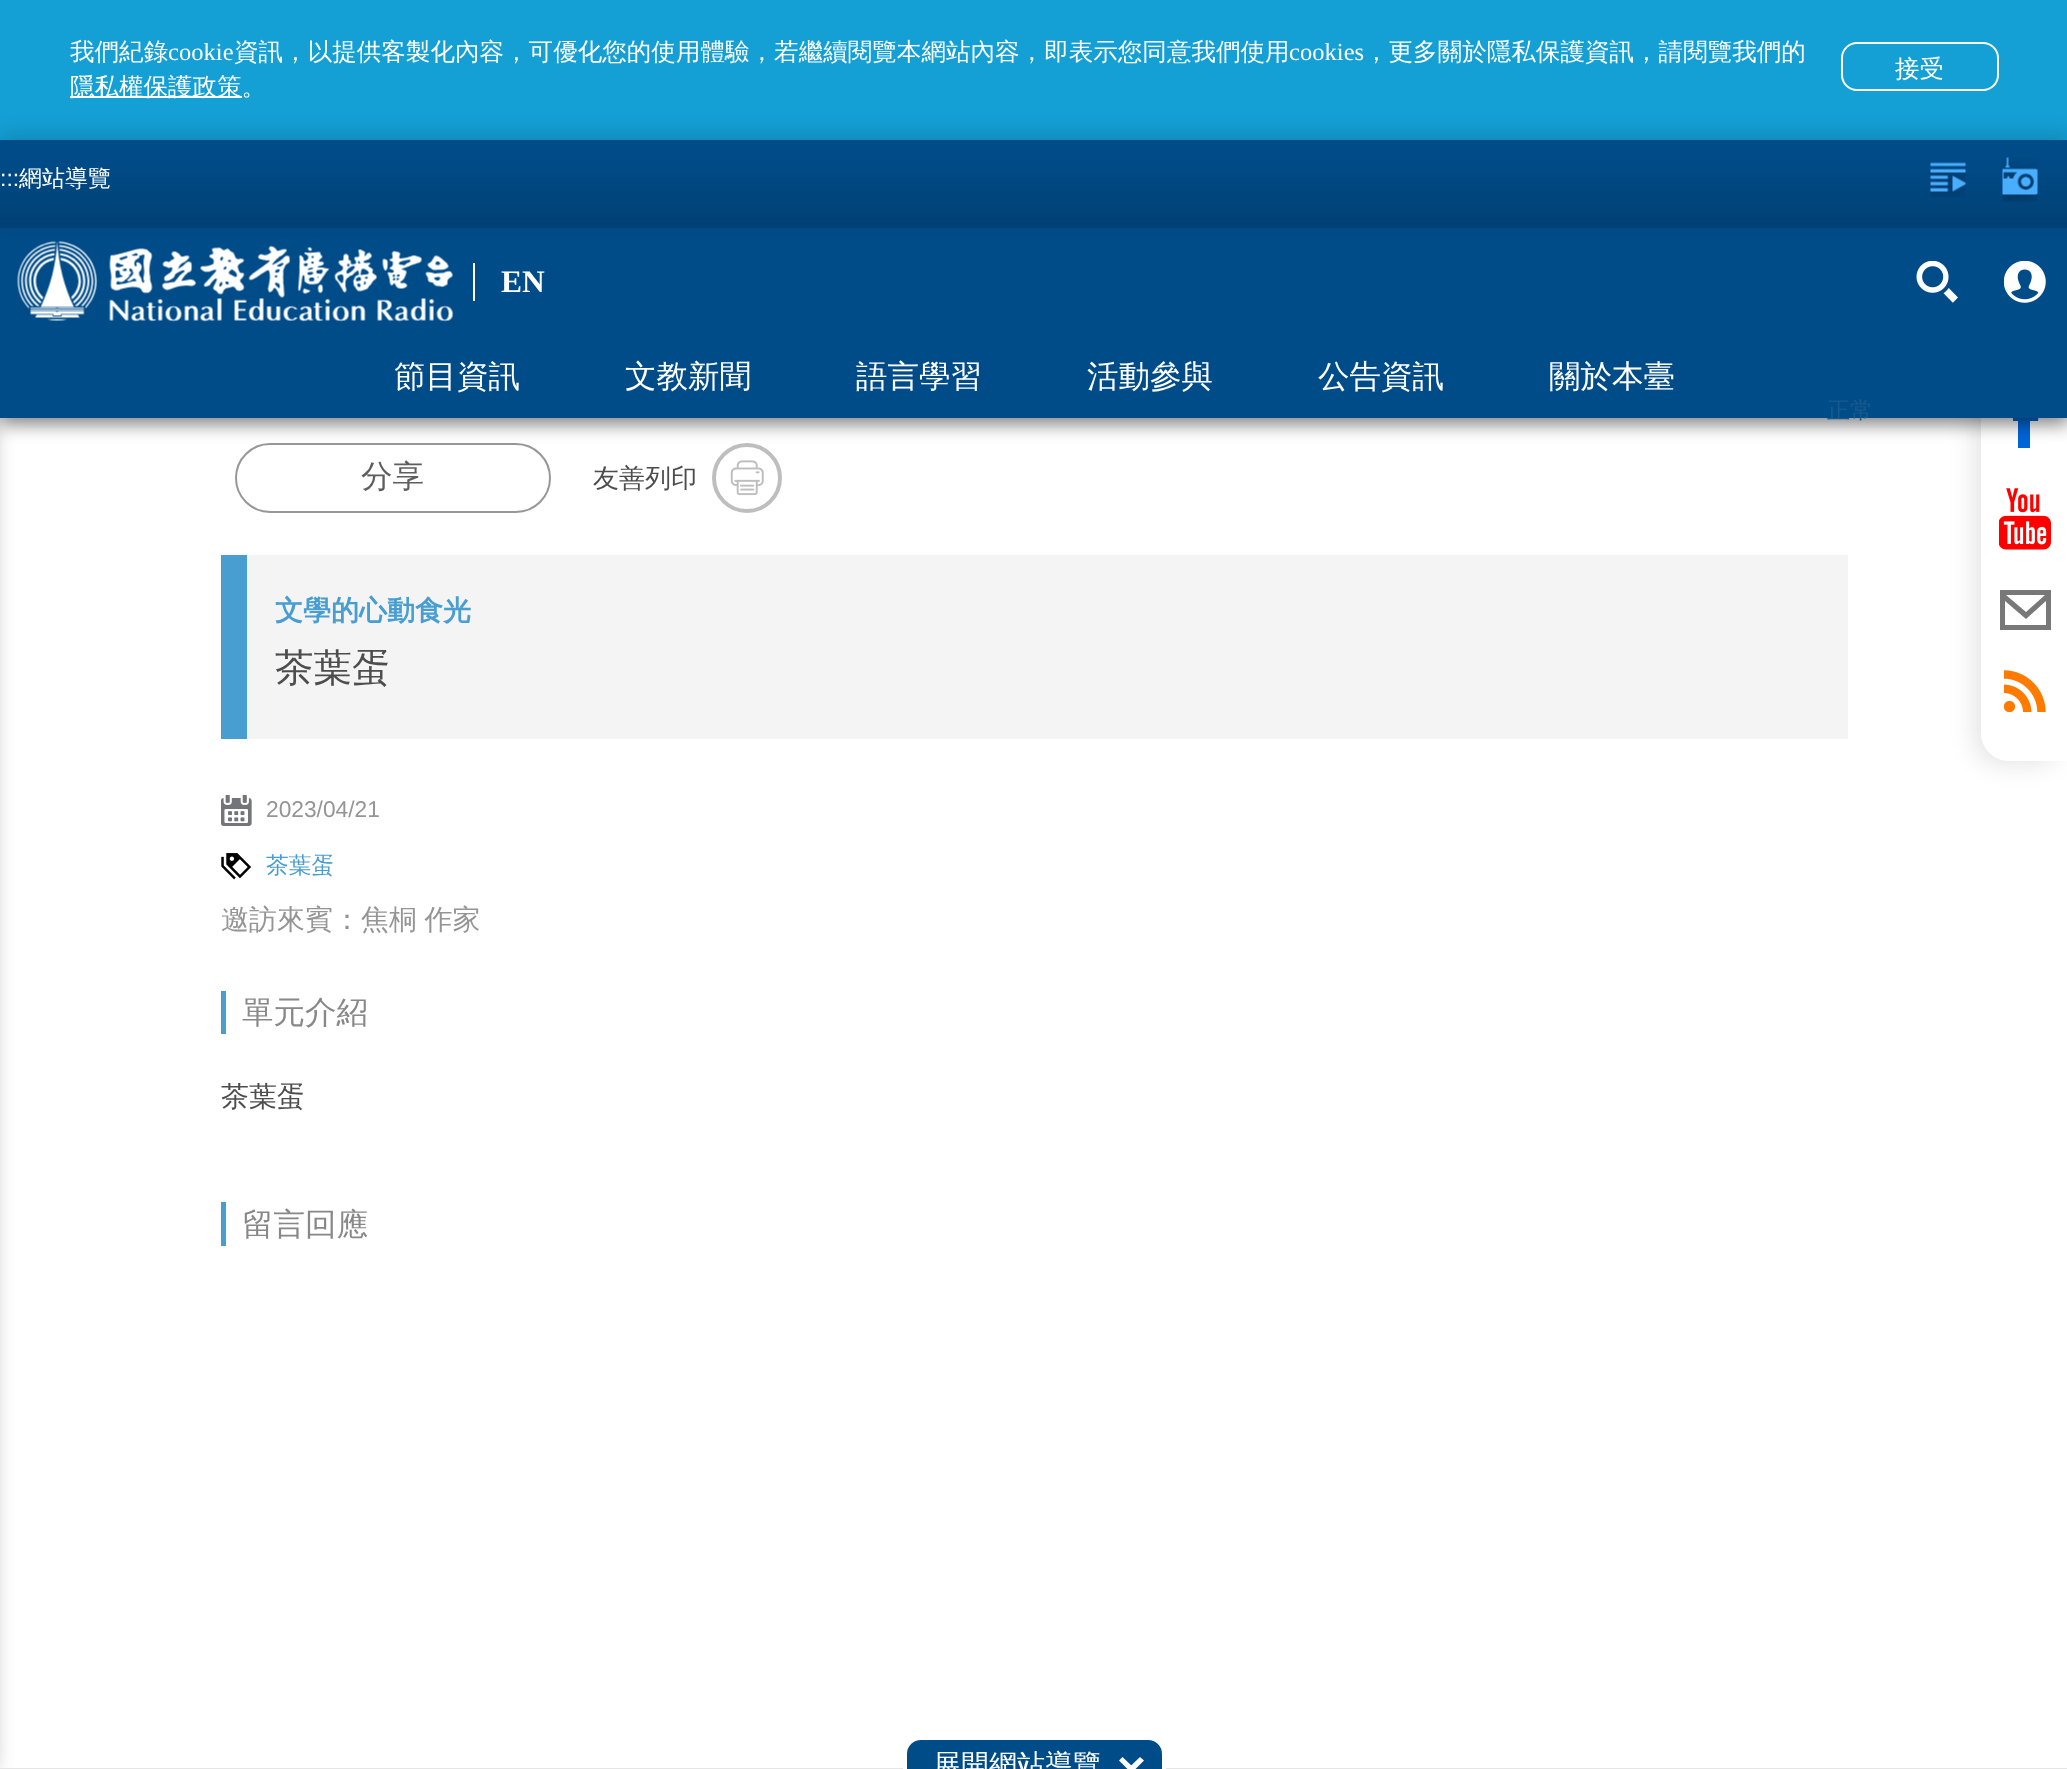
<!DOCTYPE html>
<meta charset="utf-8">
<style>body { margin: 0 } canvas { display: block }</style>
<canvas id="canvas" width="2067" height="1769"></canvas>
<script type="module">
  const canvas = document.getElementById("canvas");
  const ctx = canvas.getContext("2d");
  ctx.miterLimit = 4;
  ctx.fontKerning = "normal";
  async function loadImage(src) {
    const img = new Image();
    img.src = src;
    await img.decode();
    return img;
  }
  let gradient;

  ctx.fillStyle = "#ffffff";
  ctx.fillRect(0, 0, 2067, 1769);
  ctx.fillStyle = "rgba(0, 0, 0, 0.4)";
  ctx.filter = "blur(10.5px)";
  ctx.beginPath();
  ctx.rect(-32, 0, 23, 1769);
  ctx.fill();
  ctx.filter = "none";
  ctx.beginPath();
  ctx.roundRect(236, 444, 314, 68, 34);
  ctx.strokeStyle = "#979797";
  ctx.lineWidth = 2;
  ctx.stroke();
  ctx.drawImage(await loadImage("img6.png"), 730, 460, 34, 36);
  ctx.beginPath();
  ctx.arc(747, 478, 33, 0, Math.PI * 2);
  ctx.strokeStyle = "#bebebe";
  ctx.lineWidth = 4;
  ctx.stroke();
  ctx.fillStyle = "rgba(0, 0, 0, 0.1)";
  ctx.filter = "blur(11.5px)";
  ctx.beginPath();
  ctx.roundRect(1974, 354, 88, 411, 28);
  ctx.fill();
  ctx.filter = "none";
  ctx.fillStyle = "#ffffff";
  ctx.beginPath();
  ctx.moveTo(2009, 350);
  ctx.lineTo(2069, 350);
  ctx.lineTo(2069, 761);
  ctx.lineTo(2009, 761);
  ctx.bezierCurveTo(1993.5, 761, 1981, 748.5, 1981, 733);
  ctx.lineTo(1981, 378);
  ctx.bezierCurveTo(1981, 362.5, 1993.5, 350, 2009, 350);
  ctx.closePath();
  ctx.fill();
  ctx.save();
  ctx.beginPath();
  ctx.rect(2013, 394, 26, 54);
  ctx.clip();
  ctx.fillStyle = "#0066d9";
  ctx.beginPath();
  ctx.moveTo(2018, 411);
  ctx.lineTo(2012, 411);
  ctx.lineTo(2012, 421);
  ctx.lineTo(2018, 421);
  ctx.lineTo(2018, 448);
  ctx.lineTo(2030, 448);
  ctx.lineTo(2030, 421);
  ctx.lineTo(2038, 421);
  ctx.lineTo(2039, 411);
  ctx.lineTo(2030, 411);
  ctx.bezierCurveTo(2030, 402, 2029, 403, 2039, 403);
  ctx.lineTo(2039, 394);
  ctx.bezierCurveTo(2032, 394, 2020, 392, 2019, 402);
  ctx.closePath();
  ctx.fill("evenodd");
  ctx.restore();
  ctx.fillStyle = "rgba(0, 0, 0, 0.5)";
  ctx.filter = "blur(9px)";
  ctx.beginPath();
  ctx.rect(0, 5, 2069, 419);
  ctx.fill();
  ctx.filter = "none";
  ctx.fillStyle = "#149fd5";
  ctx.fillRect(0, 0, 2067, 140);
  ctx.letterSpacing = "0.05px";
  ctx.font = "500 24.5px WenQuanYi Zen Hei";
  ctx.fillStyle = "#ffffff";
  ctx.fillText("我們紀錄", 70, 60);
  ctx.font = "24.5px Liberation Serif";
  ctx.fillText("cookie", 168, 60);
  ctx.font = "500 24.5px WenQuanYi Zen Hei";
  ctx.fillText("資訊，以提供客製化內容，可優化您的使用體驗，若繼續閱覽本網站內容，即表示您同意我們使用", 234, 60);
  ctx.font = "24.5px Liberation Serif";
  ctx.fillText("cookies", 1289, 60);
  ctx.font = "500 24.5px WenQuanYi Zen Hei";
  ctx.fillText("，更多關於隱私保護資訊，請閱覽我們的", 1364, 60);
  ctx.fillRect(70, 96, 172, 2);
  ctx.letterSpacing = "0px";
  ctx.fillText("隱私權保護政策。", 70, 95);
  ctx.beginPath();
  ctx.roundRect(1842, 43, 156, 47, 15);
  ctx.strokeStyle = "#ffffff";
  ctx.lineWidth = 2;
  ctx.stroke();
  ctx.fillText("接受", 1895, 77);
  ctx.fillStyle = "#004c89";
  ctx.fillRect(0, 228, 2067, 190);
  ctx.drawImage(await loadImage("img3.png"), 17, 241, 437, 81);
  ctx.fillStyle = "rgba(0, 0, 0, 0.13)";
  ctx.filter = "blur(9px)";
  ctx.beginPath();
  ctx.rect(0, 133, 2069, 88);
  ctx.fill();
  ctx.filter = "none";
  gradient = ctx.createLinearGradient(1034, 140, 1034, 228);
  gradient.addColorStop(0.17, "#004c89");
  gradient.addColorStop(1, "#004174");
  ctx.fillStyle = gradient;
  ctx.fillRect(0, 140, 2067, 88);
  ctx.font = "23px Liberation Sans";
  ctx.fillStyle = "#ffffff";
  ctx.fillText(":::", 0, 186);
  ctx.font = "500 23px WenQuanYi Zen Hei";
  ctx.fillText("網站導覽", 19, 186);
  ctx.drawImage(await loadImage("img1.png"), 1930, 162, 36, 35);
  ctx.drawImage(await loadImage("img2.png"), 2002, 157, 36, 45);
  ctx.fillRect(473, 263, 2, 38);
  ctx.font = "bold 31.5px Liberation Serif";
  ctx.fillText("EN", 501, 292);
  ctx.drawImage(await loadImage("img4.png"), 1916, 261, 42, 42);
  ctx.drawImage(await loadImage("img5.png"), 2004, 261, 42, 42);
  ctx.font = "500 31.5px WenQuanYi Zen Hei";
  ctx.fillText("節目資訊", 394, 387);
  ctx.fillText("文教新聞", 625, 387);
  ctx.fillText("語言學習", 856, 387);
  ctx.fillText("活動參與", 1087, 387);
  ctx.fillText("公告資訊", 1318, 387);
  ctx.fillText("關於本臺", 1549, 387);
  ctx.font = "500 23px WenQuanYi Zen Hei";
  ctx.fillStyle = "#185a8e";
  ctx.fillText("正常", 1827, 418);
  ctx.font = "500 31.5px WenQuanYi Zen Hei";
  ctx.fillStyle = "#5e5e5e";
  ctx.fillText("分享", 361, 487);
  ctx.font = "500 26px WenQuanYi Zen Hei";
  ctx.fillStyle = "#4d4d4d";
  ctx.fillText("友善列印", 593, 487);
  ctx.fillStyle = "#f4f4f4";
  ctx.fillRect(247, 555, 1601, 184);
  ctx.fillStyle = "#489dd1";
  ctx.fillRect(221, 555, 26, 184);
  ctx.font = "bold 28px WenQuanYi Zen Hei";
  ctx.fillText("文學的心動食光", 275, 620);
  ctx.font = "500 38.5px WenQuanYi Zen Hei";
  ctx.fillStyle = "#4d4d4d";
  ctx.fillText("茶葉蛋", 275, 681);
  ctx.drawImage(await loadImage("img7.png"), 221, 795, 31, 31);
  ctx.font = "22.75px Liberation Sans";
  ctx.fillStyle = "#959595";
  ctx.fillText("2023/04/21", 266, 817);
  ctx.drawImage(await loadImage("img8.png"), 221, 853, 31, 27);
  ctx.font = "500 22.75px WenQuanYi Zen Hei";
  ctx.fillStyle = "#489dd1";
  ctx.fillText("茶葉蛋", 266, 873);
  ctx.wordSpacing = "-1px";
  ctx.font = "500 28px WenQuanYi Zen Hei";
  ctx.fillStyle = "#959595";
  ctx.fillText("邀訪來賓：焦桐 作家", 221, 929);
  ctx.fillStyle = "#489dd1";
  ctx.fillRect(221, 991, 5, 43);
  ctx.wordSpacing = "0px";
  ctx.font = "500 31.5px WenQuanYi Zen Hei";
  ctx.fillStyle = "#888888";
  ctx.fillText("單元介紹", 242, 1023);
  ctx.font = "500 28px WenQuanYi Zen Hei";
  ctx.fillStyle = "#4d4d4d";
  ctx.fillText("茶葉蛋", 221, 1106);
  ctx.fillStyle = "#489dd1";
  ctx.fillRect(221, 1202, 5, 44);
  ctx.font = "500 31.5px WenQuanYi Zen Hei";
  ctx.fillStyle = "#888888";
  ctx.fillText("留言回應", 242, 1235);
  ctx.drawImage(await loadImage("img9.png"), 1999, 488, 52, 62);
  ctx.fillStyle = "#787878";
  ctx.beginPath();
  ctx.moveTo(2005, 601);
  ctx.lineTo(2026, 619);
  ctx.lineTo(2046, 601);
  ctx.lineTo(2046, 625);
  ctx.lineTo(2005, 625);
  ctx.closePath();
  ctx.moveTo(2045, 595);
  ctx.lineTo(2026, 612);
  ctx.lineTo(2006, 595);
  ctx.closePath();
  ctx.moveTo(2000, 630);
  ctx.lineTo(2051, 630);
  ctx.lineTo(2051, 590);
  ctx.lineTo(2000, 590);
  ctx.closePath();
  ctx.fill("evenodd");
  ctx.drawImage(await loadImage("img10.png"), 2004, 670, 42, 42);
  ctx.fillStyle = "#e5e5e5";
  ctx.fillRect(0, 1768, 2067, 1);
  ctx.fillStyle = "#004c89";
  ctx.beginPath();
  ctx.roundRect(905, 1738, 259, 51, 16);
  ctx.fill();
  ctx.lineWidth = 4;
  ctx.stroke();
  ctx.font = "500 28px WenQuanYi Zen Hei";
  ctx.fillStyle = "#ffffff";
  ctx.fillText("展開網站導覽", 933, 1774);
  ctx.beginPath();
  ctx.moveTo(1122.5, 1757);
  ctx.lineTo(1135, 1769);
  ctx.lineTo(1131.5, 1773);
  ctx.lineTo(1119, 1760.5);
  ctx.closePath();
  ctx.fill();
  ctx.beginPath();
  ctx.moveTo(1127.5, 1769);
  ctx.lineTo(1140, 1757);
  ctx.lineTo(1144, 1760.5);
  ctx.lineTo(1131.5, 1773);
  ctx.closePath();
  ctx.fill();
</script>
